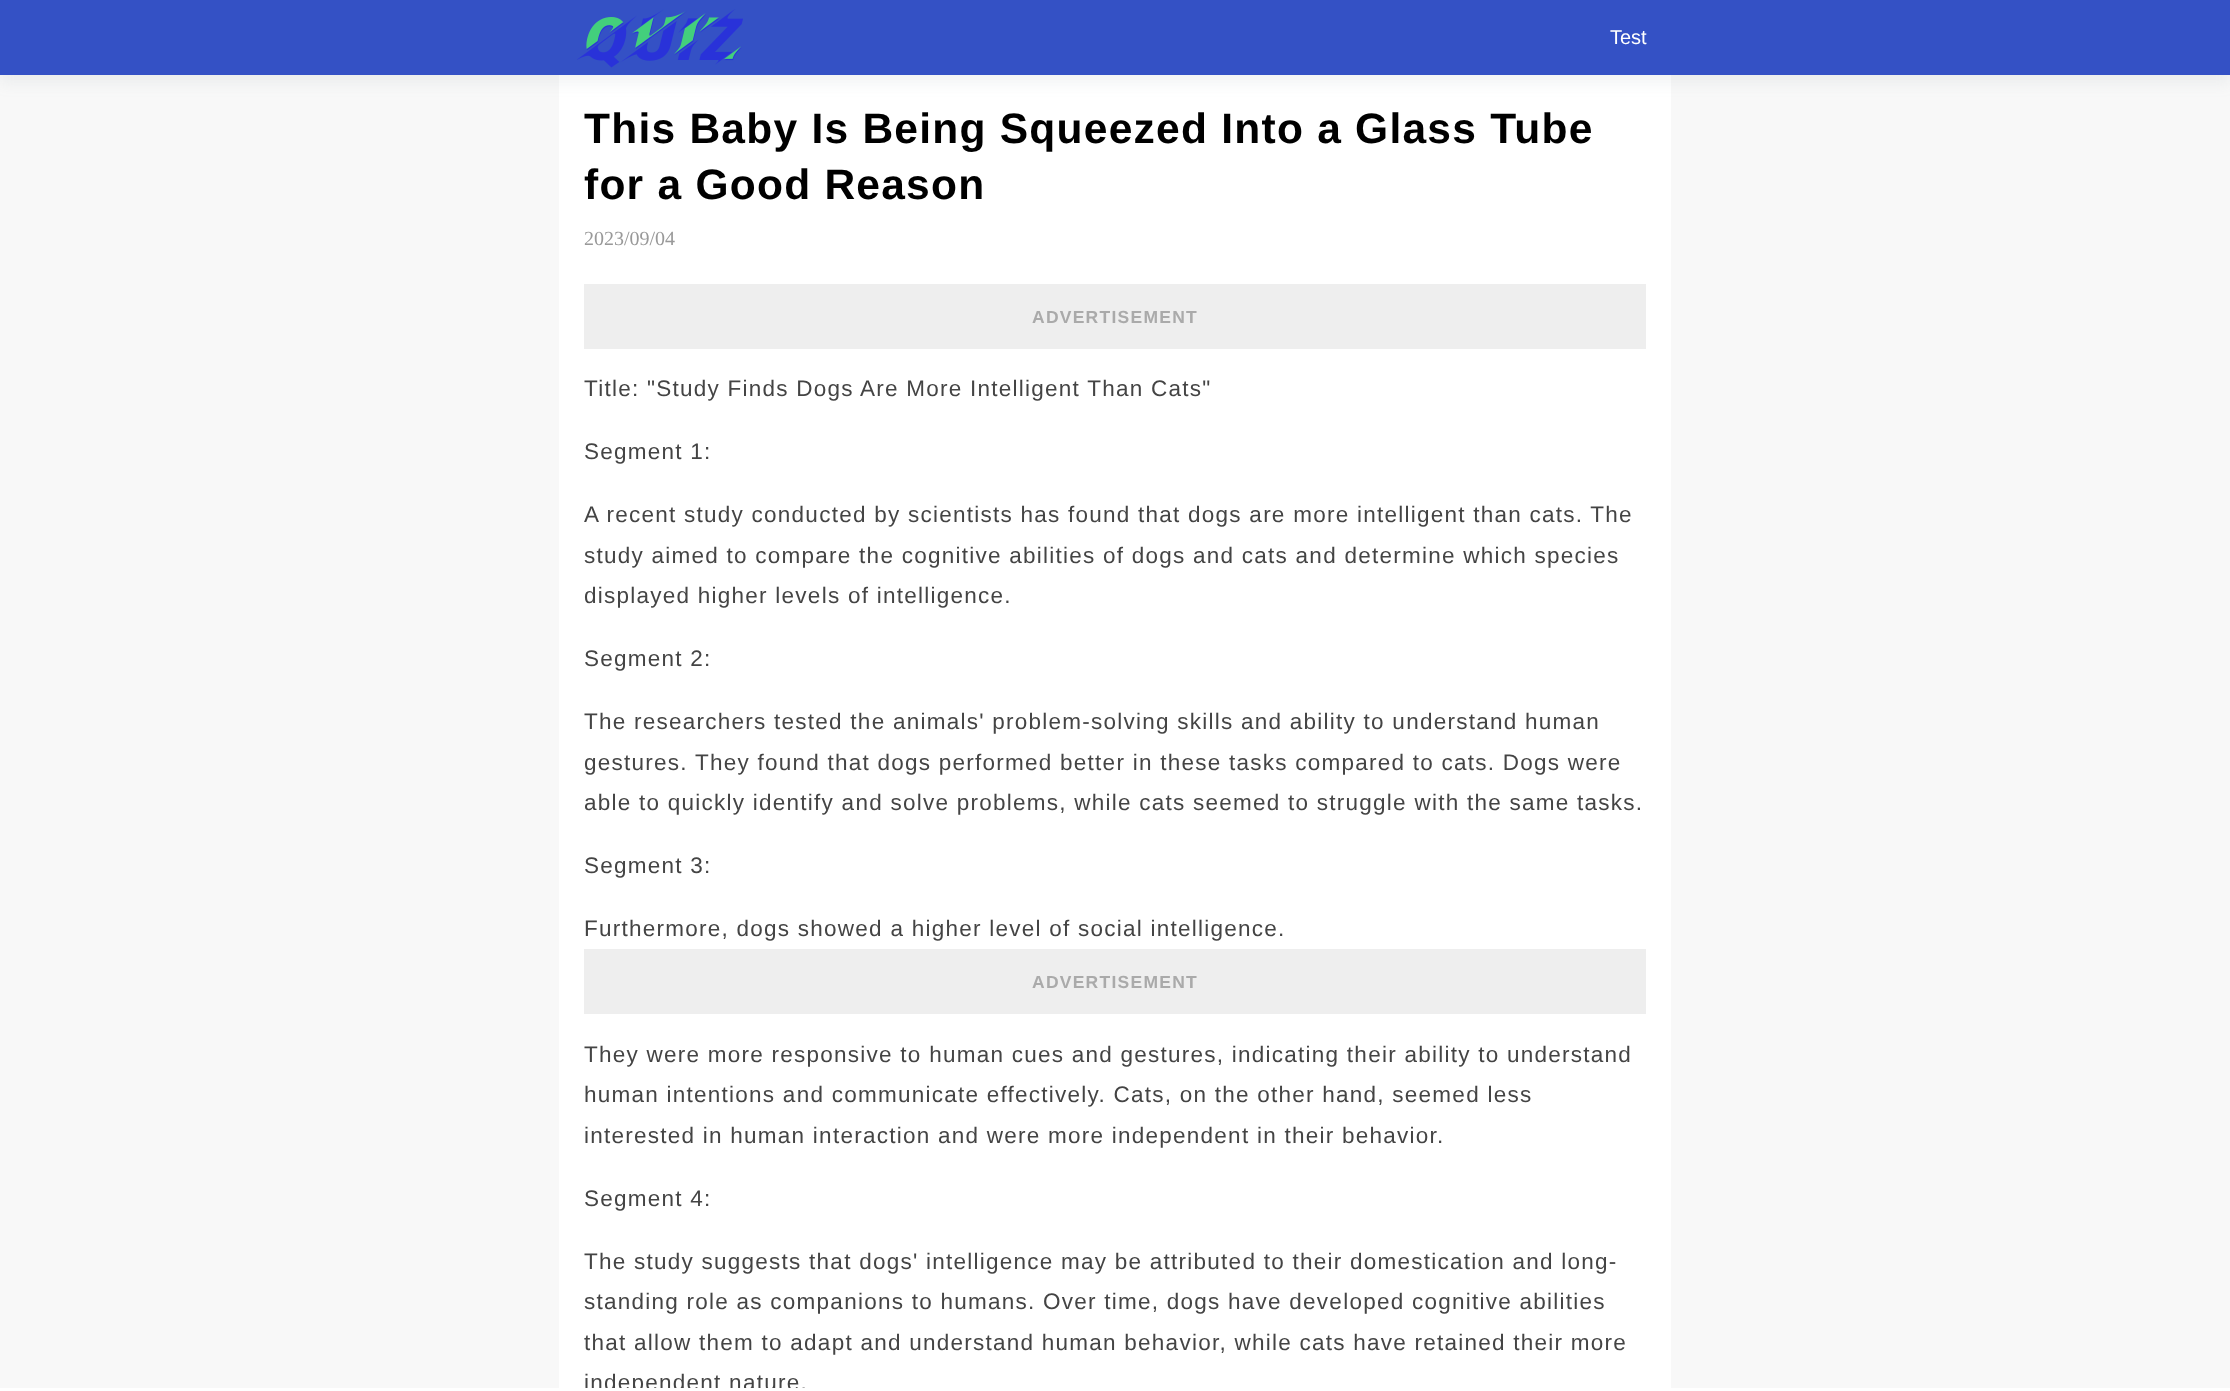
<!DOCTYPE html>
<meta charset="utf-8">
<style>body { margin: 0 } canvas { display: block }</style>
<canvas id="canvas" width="2230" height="1391"></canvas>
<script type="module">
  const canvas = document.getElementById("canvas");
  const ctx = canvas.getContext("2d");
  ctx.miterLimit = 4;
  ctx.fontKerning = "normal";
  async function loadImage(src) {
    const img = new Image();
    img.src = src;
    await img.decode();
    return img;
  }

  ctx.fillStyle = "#f8f8f8";
  ctx.fillRect(0, 0, 2230, 1391);
  ctx.fillStyle = "#ffffff";
  ctx.fillRect(559, 75, 1112, 1313);
  ctx.fillStyle = "rgba(119, 136, 149, 0.1)";
  ctx.filter = "blur(7.5px)";
  ctx.beginPath();
  ctx.rect(0, 8, 2230, 75);
  ctx.fill();
  ctx.filter = "none";
  ctx.fillStyle = "#3451c5";
  ctx.fillRect(0, 0, 2230, 75);
  ctx.drawImage(await loadImage("img1.png"), 577, 9, 166, 59);
  ctx.font = "20px Liberation Sans";
  ctx.fillStyle = "#ffffff";
  ctx.fillText("Test", 1610, 44);
  ctx.letterSpacing = "1.25px";
  ctx.font = "bold 42.5px Liberation Sans";
  ctx.fillStyle = "#000000";
  ctx.fillText("This Baby Is Being Squeezed Into a Glass Tube", 584, 143);
  ctx.fillText("for a Good Reason", 584, 199);
  ctx.letterSpacing = "0px";
  ctx.font = "20px Liberation Serif";
  ctx.fillStyle = "#999999";
  ctx.fillText("2023/09/04", 584, 245);
  ctx.fillStyle = "#eeeeee";
  ctx.fillRect(584, 284, 1062, 65);
  ctx.letterSpacing = "1.25px";
  ctx.font = "bold 17.5px Liberation Sans";
  ctx.fillStyle = "#aaaaaa";
  ctx.fillText("ADVERTISEMENT", 1032, 323);
  ctx.font = "22.5px Liberation Sans";
  ctx.fillStyle = "#444444";
  ctx.fillText("Title: \"Study Finds Dogs Are More Intelligent Than Cats\"", 584, 396);
  ctx.fillText("Segment 1:", 584, 459);
  ctx.fillText("A recent study conducted by scientists has found that dogs are more intelligent than cats. The", 584, 522);
  ctx.fillText("study aimed to compare the cognitive abilities of dogs and cats and determine which species", 584, 563);
  ctx.fillText("displayed higher levels of intelligence.", 584, 603);
  ctx.fillText("Segment 2:", 584, 666);
  ctx.fillText("The researchers tested the animals' problem-solving skills and ability to understand human", 584, 729);
  ctx.fillText("gestures. They found that dogs performed better in these tasks compared to cats. Dogs were", 584, 770);
  ctx.fillText("able to quickly identify and solve problems, while cats seemed to struggle with the same tasks.", 584, 810);
  ctx.fillText("Segment 3:", 584, 873);
  ctx.fillText("Furthermore, dogs showed a higher level of social intelligence.", 584, 936);
  ctx.fillStyle = "#eeeeee";
  ctx.fillRect(584, 949, 1062, 65);
  ctx.font = "bold 17.5px Liberation Sans";
  ctx.fillStyle = "#aaaaaa";
  ctx.fillText("ADVERTISEMENT", 1032, 988);
  ctx.font = "22.5px Liberation Sans";
  ctx.fillStyle = "#444444";
  ctx.fillText("They were more responsive to human cues and gestures, indicating their ability to understand", 584, 1062);
  ctx.fillText("human intentions and communicate effectively. Cats, on the other hand, seemed less", 584, 1102);
  ctx.fillText("interested in human interaction and were more independent in their behavior.", 584, 1143);
  ctx.fillText("Segment 4:", 584, 1206);
  ctx.fillText("The study suggests that dogs' intelligence may be attributed to their domestication and long-", 584, 1269);
  ctx.fillText("standing role as companions to humans. Over time, dogs have developed cognitive abilities", 584, 1309);
  ctx.fillText("that allow them to adapt and understand human behavior, while cats have retained their more", 584, 1350);
  ctx.fillText("independent nature.", 584, 1390);
  ctx.fillStyle = "#ffffff";
  ctx.fillRect(0, 1388, 2230, 3);
</script>
